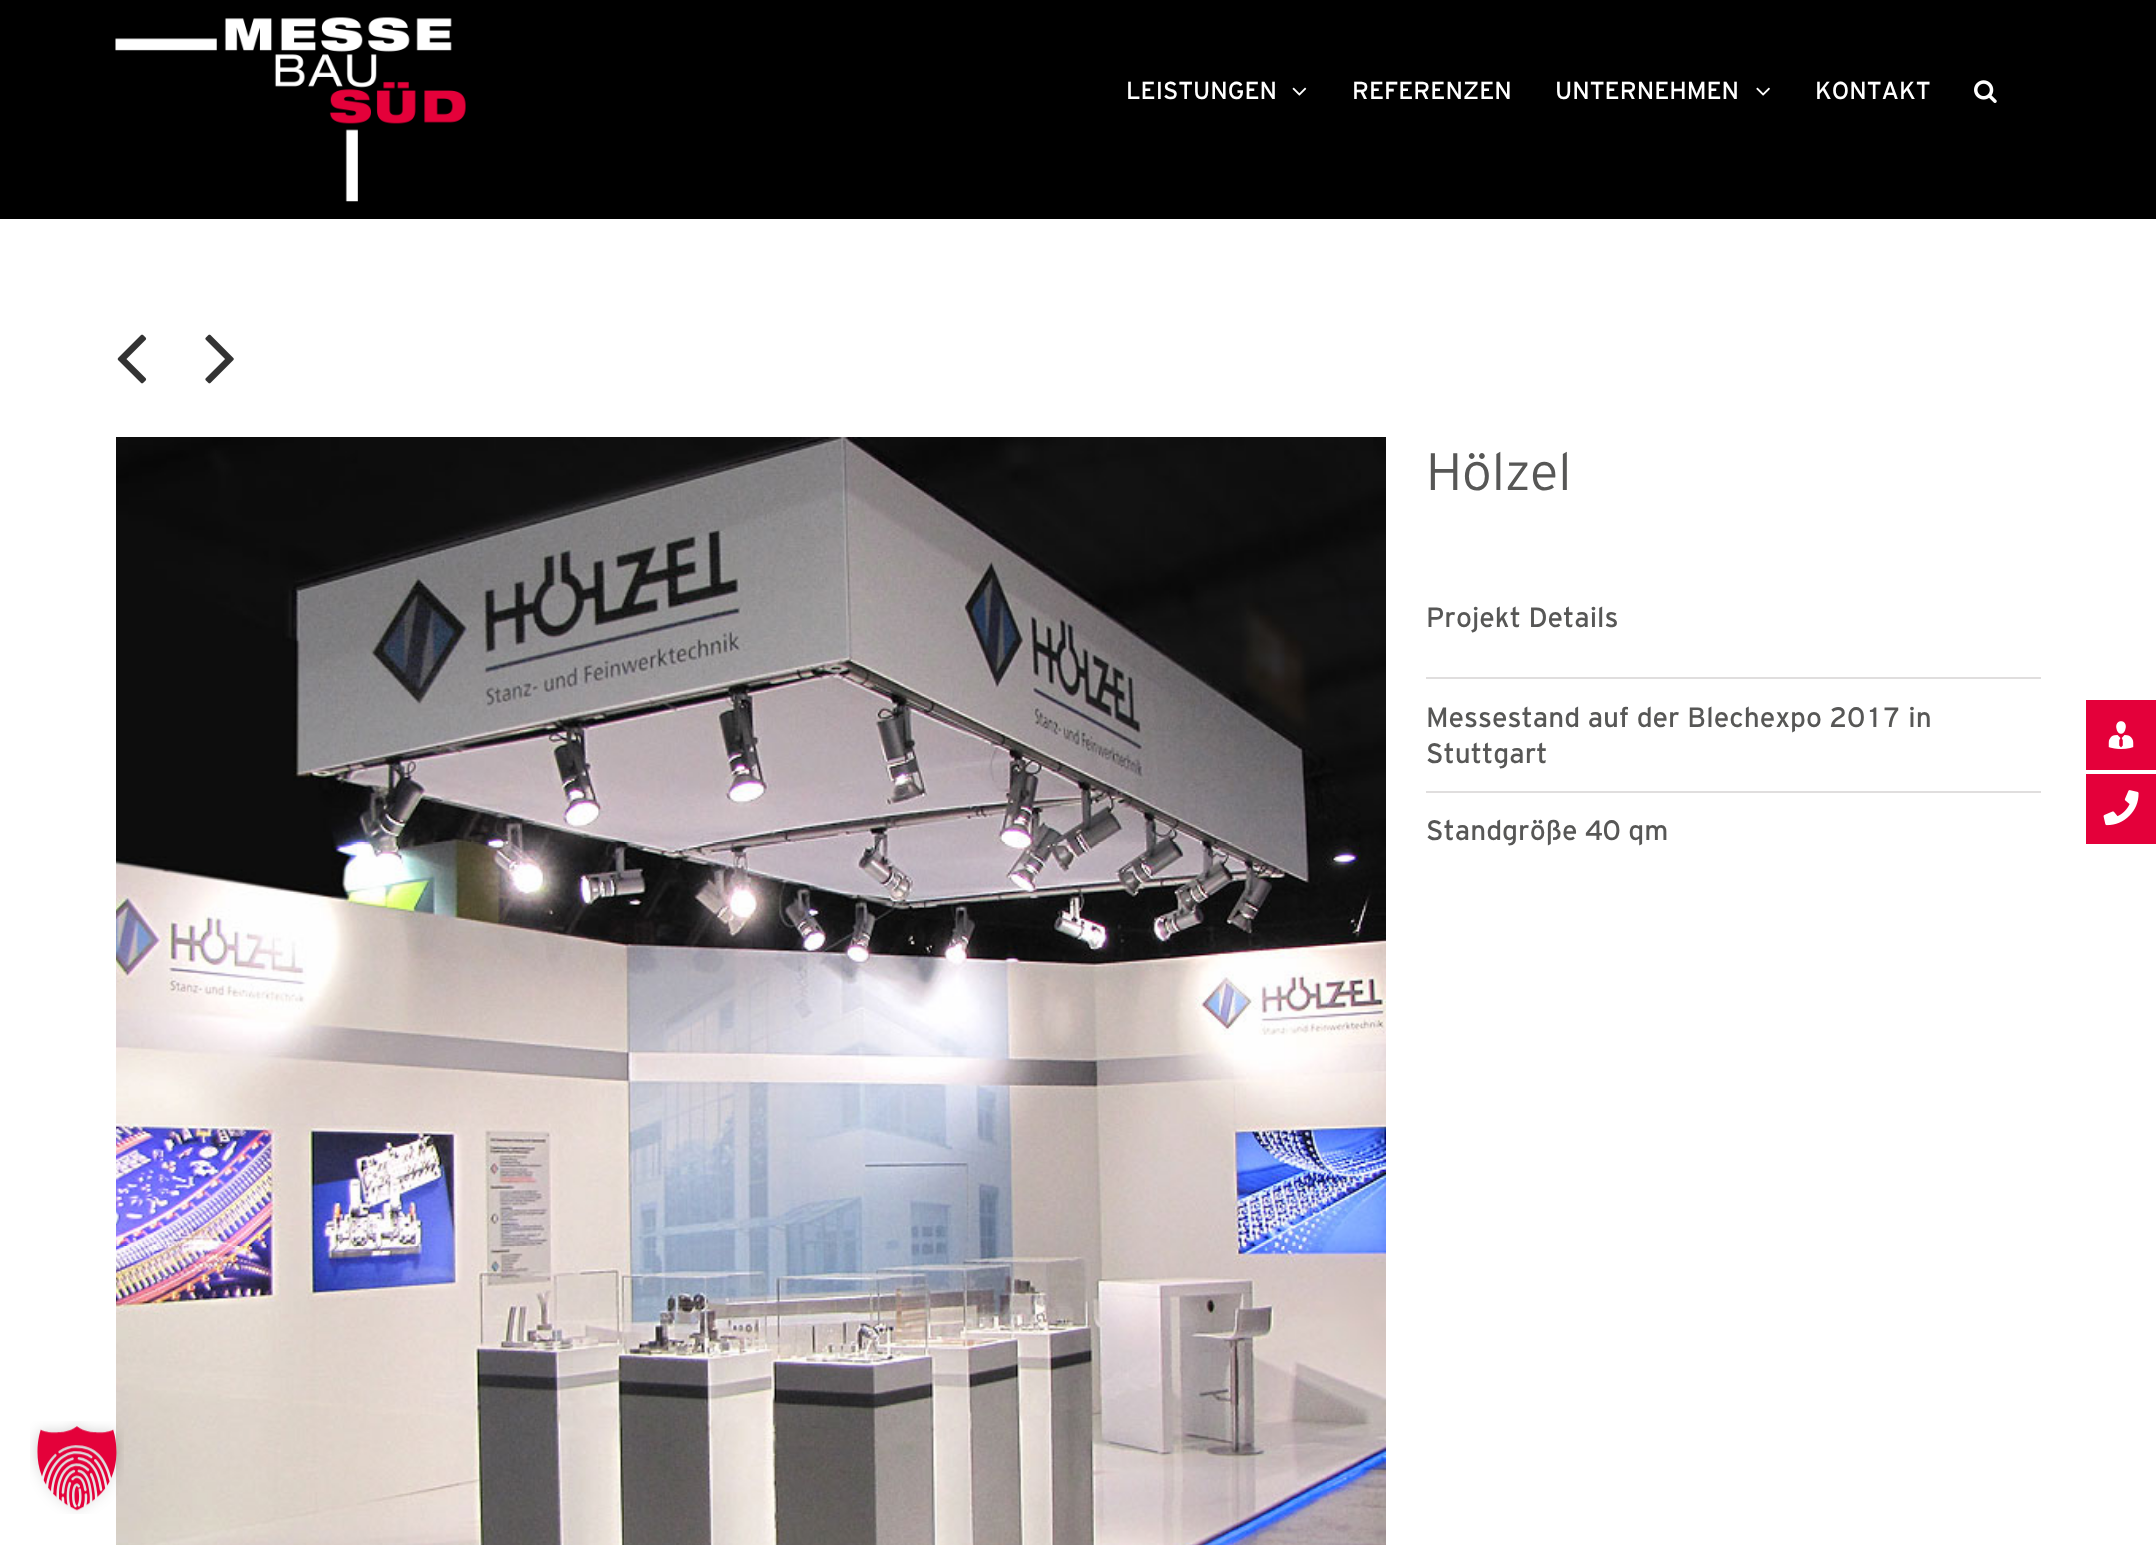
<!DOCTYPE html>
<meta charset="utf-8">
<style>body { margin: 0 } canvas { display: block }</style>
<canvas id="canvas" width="2156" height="1545"></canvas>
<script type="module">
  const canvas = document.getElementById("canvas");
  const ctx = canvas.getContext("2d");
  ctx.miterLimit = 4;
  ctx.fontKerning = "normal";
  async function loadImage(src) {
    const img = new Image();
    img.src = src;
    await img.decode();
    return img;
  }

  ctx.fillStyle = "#ffffff";
  ctx.fillRect(0, 0, 2156, 1545);
  ctx.fillStyle = "#000000";
  ctx.fillRect(0, 0, 2156, 219);
  ctx.drawImage(await loadImage("img1.png"), 115, 17, 351, 185);
  ctx.font = "24.5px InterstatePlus";
  ctx.fillStyle = "#ffffff";
  ctx.fillText("LEISTUNGEN", 1126, 99);
  ctx.drawImage(await loadImage("img2.png"), 1292, 87, 15, 9);
  ctx.fillText("REFERENZEN", 1352, 99);
  ctx.fillText("UNTERNEHMEN", 1555, 99);
  ctx.drawImage(await loadImage("img3.png"), 1756, 87, 14, 9);
  ctx.fillText("KONTAKT", 1815, 99);
  ctx.drawImage(await loadImage("img4.png"), 1974, 80, 23, 23);
  ctx.drawImage(await loadImage("img5.png"), 117, 334, 30, 50);
  ctx.drawImage(await loadImage("img6.png"), 205, 334, 29, 50);
  ctx.drawImage(await loadImage("img7.png"), 116, 437, 1270, 1108);
  ctx.font = "300 52.5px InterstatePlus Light";
  ctx.fillStyle = "#575756";
  ctx.fillText("Hölzel", 1426, 490);
  ctx.font = "28px InterstatePlus";
  ctx.fillText("Projekt Details", 1426, 627);
  ctx.fillStyle = "#e0dede";
  ctx.fillRect(1426, 677, 615, 2);
  ctx.fillStyle = "#575756";
  ctx.fillText("Messestand auf der Blechexpo 2017 in", 1426, 727);
  ctx.fillText("Stuttgart", 1426, 763);
  ctx.fillStyle = "#e0dede";
  ctx.fillRect(1426, 791, 615, 2);
  ctx.fillStyle = "#575756";
  ctx.fillText("Standgröße 40 qm", 1426, 840);
  ctx.fillStyle = "#e4003a";
  ctx.fillRect(2086, 700, 70, 70);
  ctx.drawImage(await loadImage("img8.png"), 2108, 721, 26, 28);
  ctx.fillRect(2086, 774, 70, 70);
  ctx.drawImage(await loadImage("img9.png"), 2103, 790, 36, 36);
  ctx.drawImage(await loadImage("img10.png"), 30, 1421, 94, 93);
</script>
